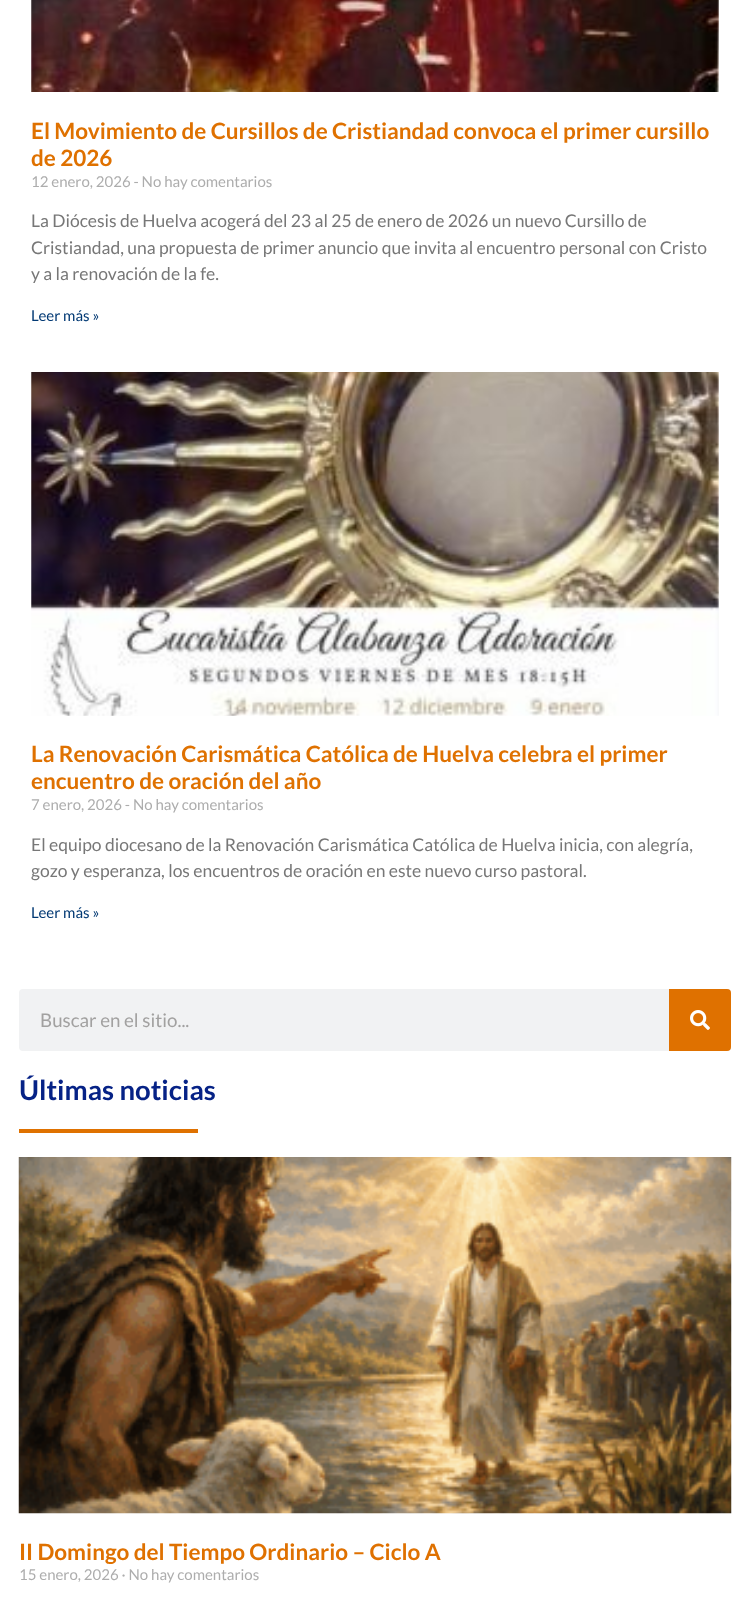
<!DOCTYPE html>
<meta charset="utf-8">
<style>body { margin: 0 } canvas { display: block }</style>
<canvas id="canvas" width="750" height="1608"></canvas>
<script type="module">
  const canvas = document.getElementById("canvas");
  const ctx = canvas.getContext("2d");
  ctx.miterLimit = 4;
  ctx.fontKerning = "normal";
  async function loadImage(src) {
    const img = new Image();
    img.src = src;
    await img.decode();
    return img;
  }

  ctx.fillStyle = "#ffffff";
  ctx.fillRect(0, 0, 750, 1608);
  ctx.drawImage(await loadImage("img1.png"), 31, 0, 688, 92);
  ctx.font = "bold 22.5px Lato";
  ctx.fillStyle = "#df7100";
  ctx.fillText("El Movimiento de Cursillos de Cristiandad convoca el primer cursillo", 31, 139);
  ctx.fillText("de 2026", 31, 166);
  ctx.font = "15px Lato";
  ctx.fillStyle = "#adadad";
  ctx.fillText("12 enero, 2026 - No hay comentarios", 31, 187);
  ctx.font = "17.5px Lato";
  ctx.fillStyle = "#777777";
  ctx.fillText("La Diócesis de Huelva acogerá del 23 al 25 de enero de 2026 un nuevo Cursillo de", 31, 227);
  ctx.fillText("Cristiandad, una propuesta de primer anuncio que invita al encuentro personal con Cristo", 31, 254);
  ctx.fillText("y a la renovación de la fe.", 31, 280);
  ctx.font = "15px Lato";
  ctx.fillStyle = "#003873";
  ctx.fillText("Leer más »", 31, 321);
  ctx.drawImage(await loadImage("img2.png"), 31, 372, 688, 344);
  ctx.font = "bold 22.5px Lato";
  ctx.fillStyle = "#df7100";
  ctx.fillText("La Renovación Carismática Católica de Huelva celebra el primer", 31, 762);
  ctx.fillText("encuentro de oración del año", 31, 789);
  ctx.font = "15px Lato";
  ctx.fillStyle = "#adadad";
  ctx.fillText("7 enero, 2026 - No hay comentarios", 31, 810);
  ctx.font = "17.5px Lato";
  ctx.fillStyle = "#777777";
  ctx.fillText("El equipo diocesano de la Renovación Carismática Católica de Huelva inicia, con alegría,", 31, 851);
  ctx.fillText("gozo y esperanza, los encuentros de oración en este nuevo curso pastoral.", 31, 877);
  ctx.font = "15px Lato";
  ctx.fillStyle = "#003873";
  ctx.fillText("Leer más »", 31, 918);
  ctx.fillStyle = "#f1f2f3";
  ctx.beginPath();
  ctx.roundRect(19, 989, 712, 62, 4);
  ctx.fill();
  ctx.font = "18.75px Lato";
  ctx.fillStyle = "#a2a1a0";
  ctx.fillText("Buscar en el sitio...", 40, 1027);
  ctx.fillStyle = "#df7100";
  ctx.beginPath();
  ctx.roundRect(669, 989, 62, 62, [0, 4, 4, 0]);
  ctx.fill();
  ctx.drawImage(await loadImage("img3.png"), 690, 1010, 20, 20);
  ctx.font = "bold 27.5px Lato";
  ctx.fillStyle = "#062286";
  ctx.fillText("Últimas noticias", 19, 1100);
  ctx.fillStyle = "#df7100";
  ctx.fillRect(19, 1129, 179, 4);
  ctx.drawImage(await loadImage("img4.png"), 18, 1157, 714, 357);
  ctx.font = "bold 22.5px Lato";
  ctx.fillText("II Domingo del Tiempo Ordinario – Ciclo A", 19, 1560);
  ctx.font = "15px Lato";
  ctx.fillStyle = "#adadad";
  ctx.fillText("15 enero, 2026 · No hay comentarios", 19, 1580);
</script>
